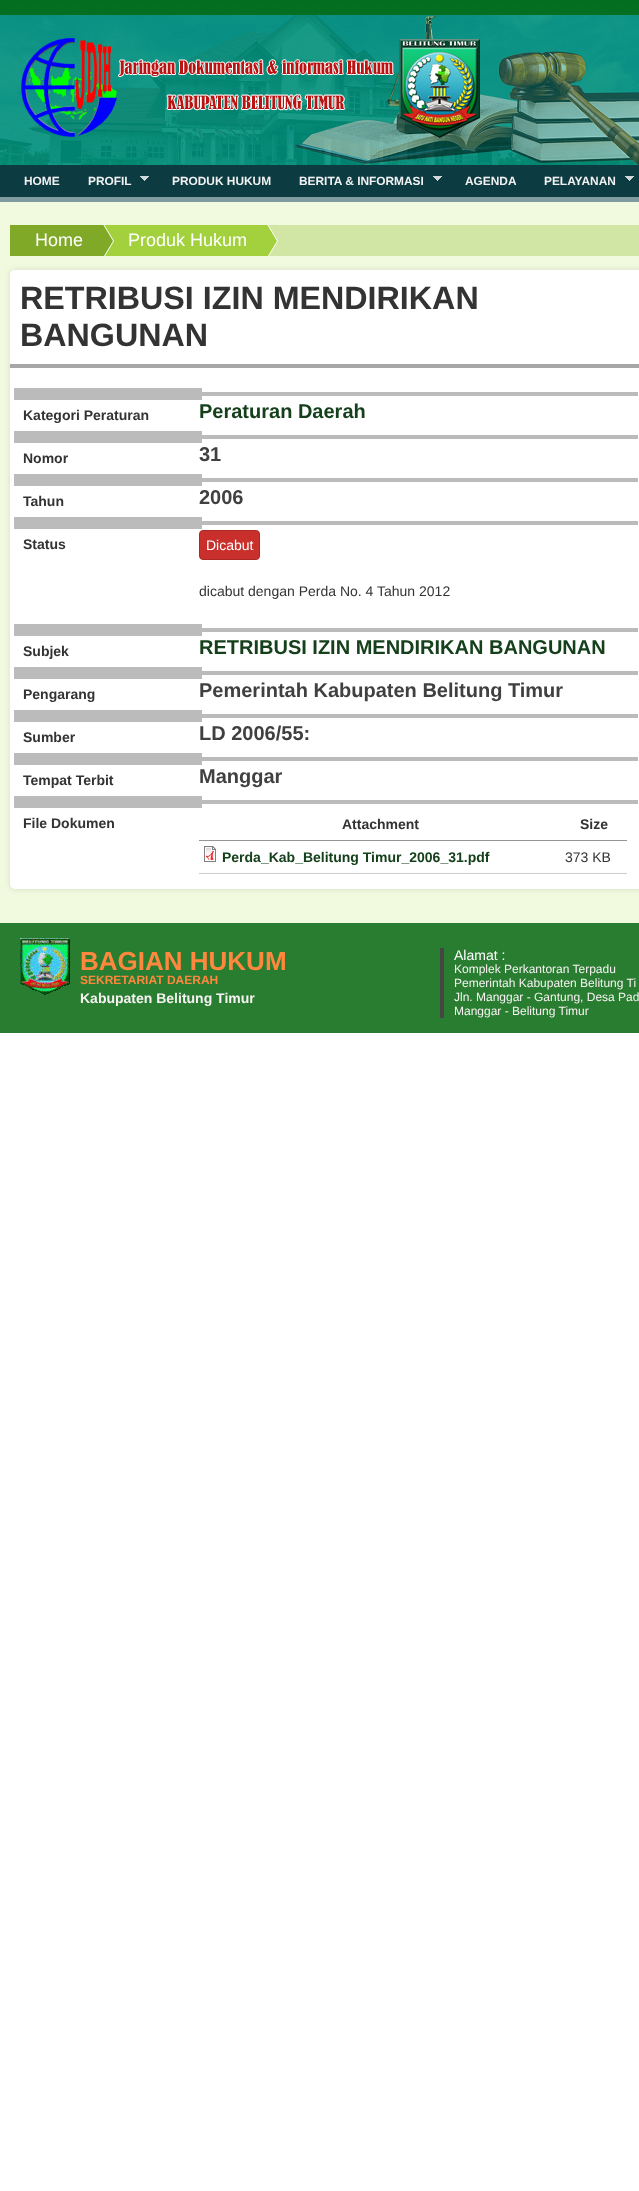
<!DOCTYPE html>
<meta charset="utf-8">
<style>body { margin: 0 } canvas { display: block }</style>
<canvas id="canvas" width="639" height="2191"></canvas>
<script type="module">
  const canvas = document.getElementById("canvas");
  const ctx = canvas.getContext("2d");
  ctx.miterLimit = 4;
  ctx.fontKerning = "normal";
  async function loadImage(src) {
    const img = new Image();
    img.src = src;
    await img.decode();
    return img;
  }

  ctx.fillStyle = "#ffffff";
  ctx.fillRect(0, 0, 639, 2191);
  ctx.drawImage(await loadImage("img1.png"), 0, 0, 639, 15);
  ctx.drawImage(await loadImage("img2.png"), 0, 15, 639, 150);
  ctx.drawImage(await loadImage("img3.png"), 21, 38, 459, 100);
  ctx.fillStyle = "#f1f9df";
  ctx.fillRect(0, 202, 639, 721);
  ctx.fillStyle = "#0d3b42";
  ctx.fillRect(0, 165, 639, 32);
  ctx.fillStyle = "#809b9f";
  ctx.fillRect(0, 197, 639, 5);
  ctx.font = "bold 11.9px Liberation Sans";
  ctx.fillStyle = "#f1f1f1";
  ctx.fillText("HOME", 24, 185);
  ctx.fillText("PROFIL", 88, 185);
  ctx.drawImage(await loadImage("img4.png"), 140, 176, 9, 5);
  ctx.fillText("PRODUK HUKUM", 172, 185);
  ctx.fillText("BERITA & INFORMASI", 299, 185);
  ctx.drawImage(await loadImage("img4.png"), 433, 176, 9, 5);
  ctx.fillText("AGENDA", 465, 185);
  ctx.fillText("PELAYANAN", 544, 185);
  ctx.drawImage(await loadImage("img4.png"), 625, 176, 9, 5);
  ctx.fillStyle = "#d1e5a4";
  ctx.fillRect(268, 225, 371, 31);
  ctx.fillStyle = "#80a928";
  ctx.fillRect(10, 225, 73, 31);
  ctx.fillStyle = "#a2d13d";
  ctx.fillRect(104, 225, 143, 31);
  ctx.save();
  ctx.beginPath();
  ctx.rect(10, 225, 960, 31);
  ctx.clip();
  ctx.fillStyle = "#ffffff";
  ctx.beginPath();
  ctx.moveTo(84, 291);
  ctx.lineTo(84, 191);
  ctx.lineTo(114, 241);
  ctx.closePath();
  ctx.fill();
  ctx.fillStyle = "#80a928";
  ctx.beginPath();
  ctx.moveTo(83, 291);
  ctx.lineTo(83, 191);
  ctx.lineTo(113, 241);
  ctx.closePath();
  ctx.fill();
  ctx.restore();
  ctx.font = "18px Liberation Sans";
  ctx.fillStyle = "#ffffff";
  ctx.fillText("Home", 35, 246);
  ctx.save();
  ctx.beginPath();
  ctx.rect(10, 225, 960, 31);
  ctx.clip();
  ctx.beginPath();
  ctx.moveTo(248, 291);
  ctx.lineTo(248, 191);
  ctx.lineTo(278, 241);
  ctx.closePath();
  ctx.fill();
  ctx.fillStyle = "#a2d13d";
  ctx.beginPath();
  ctx.moveTo(247, 291);
  ctx.lineTo(247, 191);
  ctx.lineTo(277, 241);
  ctx.closePath();
  ctx.fill();
  ctx.restore();
  ctx.fillText("Produk Hukum", 128, 246);
  ctx.fillStyle = "rgba(50, 50, 50, 0.1)";
  ctx.filter = "blur(2.5px)";
  ctx.beginPath();
  ctx.roundRect(9, 269, 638, 621, 6);
  ctx.fill();
  ctx.filter = "none";
  ctx.fillStyle = "#ffffff";
  ctx.beginPath();
  ctx.roundRect(10, 270, 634, 619, 5);
  ctx.fill();
  ctx.beginPath();
  ctx.moveTo(15, 270);
  ctx.lineTo(639, 270);
  ctx.bezierCurveTo(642, 270, 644, 272, 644, 275);
  ctx.lineTo(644, 368);
  ctx.lineTo(10, 368);
  ctx.lineTo(10, 275);
  ctx.bezierCurveTo(10, 272, 12, 270, 15, 270);
  ctx.closePath();
  ctx.fill();
  ctx.fillStyle = "#a7a7a7";
  ctx.fillRect(10, 364, 629, 4);
  ctx.font = "bold 32.25px Liberation Sans";
  ctx.fillStyle = "#333333";
  ctx.fillText("RETRIBUSI IZIN MENDIRIKAN", 20, 309);
  ctx.fillText("BANGUNAN", 20, 346);
  ctx.fillStyle = "#bbbbbb";
  ctx.fillRect(194, 392, 444, 4);
  ctx.fillRect(14, 388, 188, 12);
  ctx.font = "bold 14px Liberation Sans";
  ctx.fillStyle = "#333333";
  ctx.fillText("Kategori Peraturan", 23, 420);
  ctx.font = "bold 20px Liberation Sans";
  ctx.fillStyle = "#15401b";
  ctx.fillText("Peraturan Daerah", 199, 418);
  ctx.fillStyle = "#bbbbbb";
  ctx.fillRect(194, 435, 444, 4);
  ctx.fillRect(14, 431, 188, 12);
  ctx.font = "bold 14px Liberation Sans";
  ctx.fillStyle = "#333333";
  ctx.fillText("Nomor", 23, 463);
  ctx.font = "bold 20px Liberation Sans";
  ctx.fillStyle = "#404041";
  ctx.fillText("31", 199, 461);
  ctx.fillStyle = "#bbbbbb";
  ctx.fillRect(194, 478, 444, 4);
  ctx.fillRect(14, 474, 188, 12);
  ctx.font = "bold 14px Liberation Sans";
  ctx.fillStyle = "#333333";
  ctx.fillText("Tahun", 23, 506);
  ctx.font = "bold 20px Liberation Sans";
  ctx.fillStyle = "#404041";
  ctx.fillText("2006", 199, 504);
  ctx.fillStyle = "#bbbbbb";
  ctx.fillRect(194, 521, 444, 4);
  ctx.fillRect(14, 517, 188, 12);
  ctx.font = "bold 14px Liberation Sans";
  ctx.fillStyle = "#333333";
  ctx.fillText("Status", 23, 549);
  ctx.fillStyle = "#c9302c";
  ctx.beginPath();
  ctx.roundRect(199.5, 530.5, 60, 29, 3.5);
  ctx.fill();
  ctx.strokeStyle = "#ac2925";
  ctx.stroke();
  ctx.font = "14px Liberation Sans";
  ctx.fillStyle = "#ffffff";
  ctx.fillText("Dicabut", 206, 550);
  ctx.fillStyle = "#333333";
  ctx.fillText("dicabut dengan Perda No. 4 Tahun 2012", 199, 596);
  ctx.fillStyle = "#bbbbbb";
  ctx.fillRect(194, 628, 444, 4);
  ctx.fillRect(14, 624, 188, 12);
  ctx.font = "bold 14px Liberation Sans";
  ctx.fillStyle = "#333333";
  ctx.fillText("Subjek", 23, 656);
  ctx.font = "bold 20px Liberation Sans";
  ctx.fillStyle = "#15401b";
  ctx.fillText("RETRIBUSI IZIN MENDIRIKAN BANGUNAN", 199, 654);
  ctx.fillStyle = "#bbbbbb";
  ctx.fillRect(194, 671, 444, 4);
  ctx.fillRect(14, 667, 188, 12);
  ctx.font = "bold 14px Liberation Sans";
  ctx.fillStyle = "#333333";
  ctx.fillText("Pengarang", 23, 699);
  ctx.font = "bold 20px Liberation Sans";
  ctx.fillStyle = "#404041";
  ctx.fillText("Pemerintah Kabupaten Belitung Timur", 199, 697);
  ctx.fillStyle = "#bbbbbb";
  ctx.fillRect(194, 714, 444, 4);
  ctx.fillRect(14, 710, 188, 12);
  ctx.font = "bold 14px Liberation Sans";
  ctx.fillStyle = "#333333";
  ctx.fillText("Sumber", 23, 742);
  ctx.font = "bold 20px Liberation Sans";
  ctx.fillStyle = "#404041";
  ctx.fillText("LD 2006/55:", 199, 740);
  ctx.fillStyle = "#bbbbbb";
  ctx.fillRect(194, 757, 444, 4);
  ctx.fillRect(14, 753, 188, 12);
  ctx.font = "bold 14px Liberation Sans";
  ctx.fillStyle = "#333333";
  ctx.fillText("Tempat Terbit", 23, 785);
  ctx.font = "bold 20px Liberation Sans";
  ctx.fillStyle = "#404041";
  ctx.fillText("Manggar", 199, 783);
  ctx.fillStyle = "#bbbbbb";
  ctx.fillRect(194, 800, 444, 4);
  ctx.fillRect(14, 796, 188, 12);
  ctx.font = "bold 14px Liberation Sans";
  ctx.fillStyle = "#333333";
  ctx.fillText("File Dokumen", 23, 828);
  ctx.fillText("Attachment", 342, 829);
  ctx.fillStyle = "#969696";
  ctx.fillRect(199, 840, 428, 1);
  ctx.fillStyle = "#333333";
  ctx.fillText("Size", 580, 829);
  ctx.fillStyle = "#cccccc";
  ctx.fillRect(199, 873, 428, 1);
  ctx.drawImage(await loadImage("img5.png"), 204, 846, 12, 16);
  ctx.fillStyle = "#15401b";
  ctx.fillText("Perda_Kab_Belitung Timur_2006_31.pdf", 222, 862);
  ctx.font = "14px Liberation Sans";
  ctx.fillStyle = "#333333";
  ctx.fillText("373 KB", 565, 862);
  ctx.fillStyle = "#297d30";
  ctx.fillRect(0, 923, 639, 110);
  ctx.drawImage(await loadImage("img6.png"), 20, 938, 50, 57);
  ctx.font = "bold 26px Liberation Sans";
  ctx.fillStyle = "#ff873e";
  ctx.fillText("BAGIAN HUKUM", 80, 970);
  ctx.font = "bold 12px Liberation Sans";
  ctx.fillText("SEKRETARIAT DAERAH", 80, 984);
  ctx.font = "bold 14px Liberation Sans";
  ctx.fillStyle = "#f7f2f2";
  ctx.fillText("Kabupaten Belitung Timur", 80, 1003);
  ctx.fillStyle = "#454545";
  ctx.fillRect(440, 948, 4, 70);
  ctx.font = "14px Liberation Sans";
  ctx.fillStyle = "#ffffff";
  ctx.fillText("Alamat :", 454, 960);
  ctx.font = "12px Liberation Sans";
  ctx.fillStyle = "#f7f2f2";
  ctx.fillText("Komplek Perkantoran Terpadu", 454, 973);
  ctx.fillText("Pemerintah Kabupaten Belitung Ti", 454, 987);
  ctx.fillText("Jln. Manggar - Gantung, Desa Pad", 454, 1001);
  ctx.fillText("Manggar - Belitung Timur", 454, 1015);
</script>
